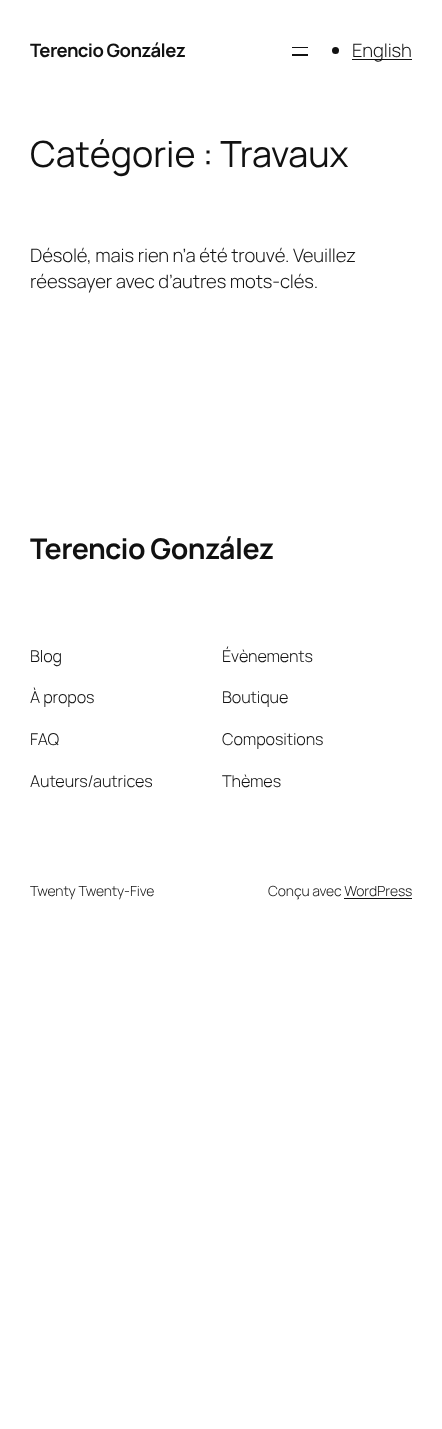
<!DOCTYPE html>
<meta charset="utf-8">
<style>body { margin: 0 } canvas { display: block }</style>
<canvas id="canvas" width="442" height="1429"></canvas>
<script type="module">
  const canvas = document.getElementById("canvas");
  const ctx = canvas.getContext("2d");
  ctx.miterLimit = 4;
  ctx.fontKerning = "normal";

  ctx.fillStyle = "#ffffff";
  ctx.fillRect(0, 0, 442, 1429);
  ctx.letterSpacing = "-0.5px";
  ctx.font = "bold 18.5px Manrope";
  ctx.fillStyle = "#111111";
  ctx.fillText("Terencio González", 30, 57);
  ctx.fillRect(292, 47, 16, 1);
  ctx.fillRect(292, 54, 16, 2);
  ctx.beginPath();
  ctx.arc(335.5, 50.5, 3.5, 0, Math.PI * 2);
  ctx.fill();
  ctx.fillRect(352, 59, 60, 1);
  ctx.letterSpacing = "-0.1px";
  ctx.font = "300 18.5px Manrope";
  ctx.fillText("English", 352, 57);
  ctx.font = "36px Manrope";
  ctx.fillText("Catégorie : Travaux", 30, 167);
  ctx.font = "300 18.5px Manrope";
  ctx.fillText("Désolé, mais rien n’a été trouvé. Veuillez", 30, 262);
  ctx.fillText("réessayer avec d’autres mots-clés.", 30, 288);
  ctx.letterSpacing = "-0.5px";
  ctx.font = "bold 28.5px Manrope";
  ctx.fillText("Terencio González", 30, 559);
  ctx.letterSpacing = "-0.1px";
  ctx.font = "300 16.25px Manrope";
  ctx.fillText("Blog", 30, 662);
  ctx.fillText("À propos", 30, 703);
  ctx.fillText("FAQ", 30, 745);
  ctx.fillText("Auteurs/autrices", 30, 787);
  ctx.fillText("Évènements", 222, 662);
  ctx.fillText("Boutique", 222, 703);
  ctx.fillText("Compositions", 222, 745);
  ctx.fillText("Thèmes", 222, 787);
  ctx.font = "300 14px Manrope";
  ctx.fillText("Twenty Twenty-Five", 30, 896);
  ctx.fillText("Conçu avec WordPress", 268, 896);
  ctx.fillRect(344, 898, 68, 1);
</script>
